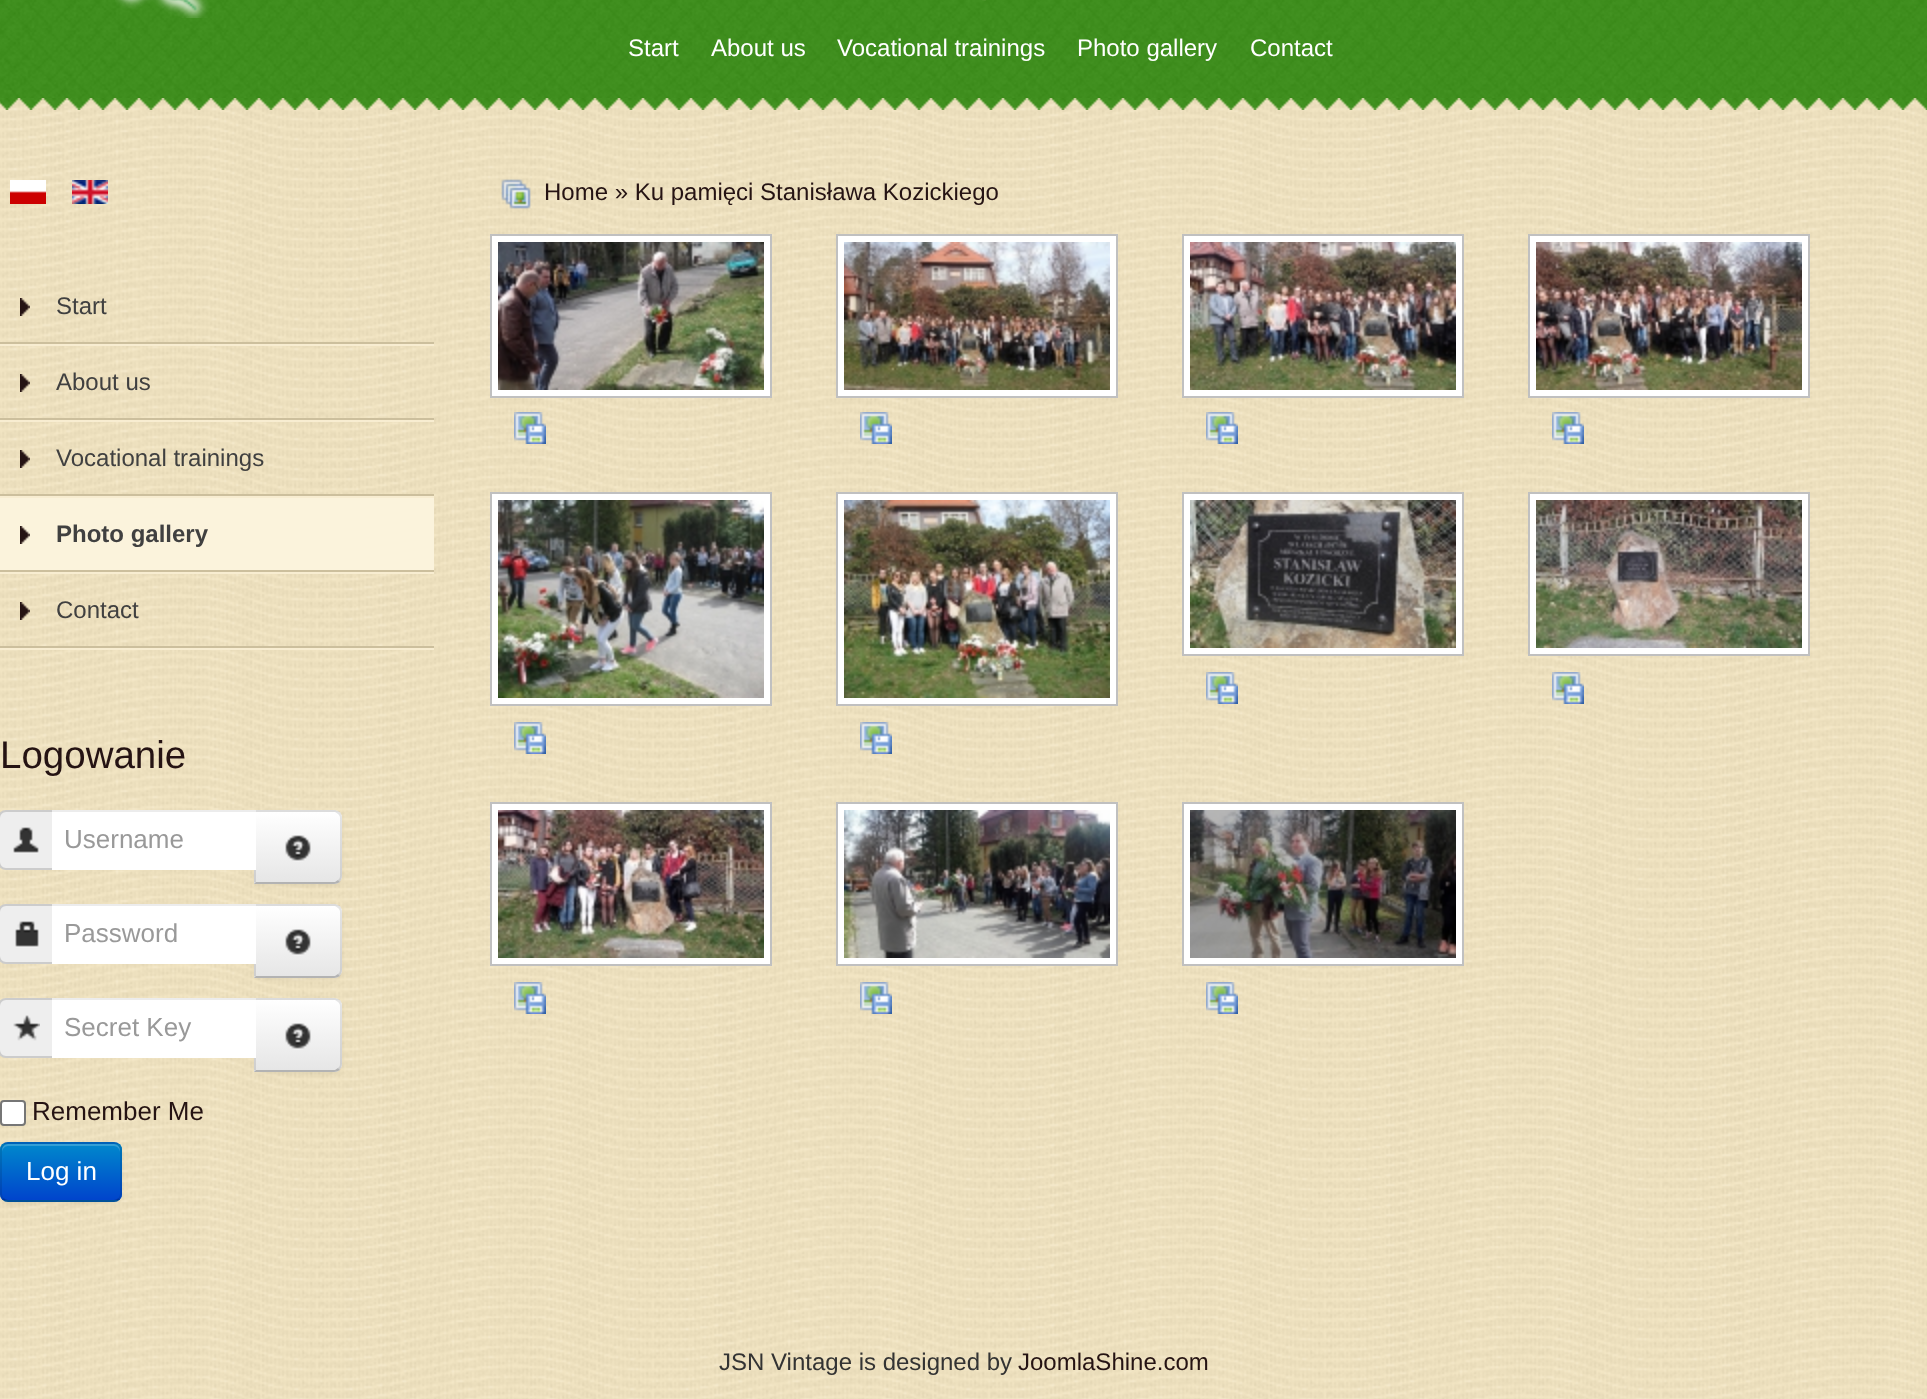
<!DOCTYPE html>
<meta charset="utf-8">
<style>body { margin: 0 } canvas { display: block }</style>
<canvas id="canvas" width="1927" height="1399"></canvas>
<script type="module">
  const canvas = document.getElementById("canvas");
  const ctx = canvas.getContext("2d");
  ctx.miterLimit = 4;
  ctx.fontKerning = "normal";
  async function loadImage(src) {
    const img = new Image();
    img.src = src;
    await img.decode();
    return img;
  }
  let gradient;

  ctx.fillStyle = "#ffffff";
  ctx.fillRect(0, 0, 1927, 1399);
  ctx.drawImage(await loadImage("img1.png"), 0, 98, 1927, 1301);
  ctx.drawImage(await loadImage("img2.png"), 0, 98, 1927, 12);
  ctx.drawImage(await loadImage("img3.png"), 0, 0, 1927, 98);
  ctx.drawImage(await loadImage("img4.png"), 115, 0, 871, 18);
  ctx.font = "24px Liberation Sans";
  ctx.fillText("Start", 628, 56);
  ctx.fillText("About us", 711, 56);
  ctx.fillText("Vocational trainings", 837, 56);
  ctx.fillText("Photo gallery", 1077, 56);
  ctx.fillText("Contact", 1250, 56);
  ctx.drawImage(await loadImage("img5.png"), 501, 179, 30, 30);
  ctx.fillStyle = "#251313";
  ctx.fillText("Home » Ku pamięci Stanisława Kozickiego", 544, 200);
  ctx.fillStyle = "#ffffff";
  ctx.beginPath();
  ctx.rect(491, 235, 280, 162);
  ctx.fill();
  ctx.strokeStyle = "#c0c0c0";
  ctx.lineWidth = 2;
  ctx.stroke();
  ctx.drawImage(await loadImage("img6.png"), 498, 242, 266, 148);
  ctx.drawImage(await loadImage("img7.png"), 514, 412, 32, 32);
  ctx.beginPath();
  ctx.rect(837, 235, 280, 162);
  ctx.fill();
  ctx.stroke();
  ctx.drawImage(await loadImage("img8.png"), 844, 242, 266, 148);
  ctx.drawImage(await loadImage("img9.png"), 860, 412, 32, 32);
  ctx.beginPath();
  ctx.rect(1183, 235, 280, 162);
  ctx.fill();
  ctx.stroke();
  ctx.drawImage(await loadImage("img10.png"), 1190, 242, 266, 148);
  ctx.drawImage(await loadImage("img11.png"), 1206, 412, 32, 32);
  ctx.beginPath();
  ctx.rect(1529, 235, 280, 162);
  ctx.fill();
  ctx.stroke();
  ctx.drawImage(await loadImage("img12.png"), 1536, 242, 266, 148);
  ctx.drawImage(await loadImage("img13.png"), 1552, 412, 32, 32);
  ctx.beginPath();
  ctx.rect(491, 493, 280, 212);
  ctx.fill();
  ctx.stroke();
  ctx.drawImage(await loadImage("img14.png"), 498, 500, 266, 198);
  ctx.drawImage(await loadImage("img15.png"), 514, 722, 32, 32);
  ctx.beginPath();
  ctx.rect(837, 493, 280, 212);
  ctx.fill();
  ctx.stroke();
  ctx.drawImage(await loadImage("img16.png"), 844, 500, 266, 198);
  ctx.drawImage(await loadImage("img17.png"), 860, 722, 32, 32);
  ctx.beginPath();
  ctx.rect(1183, 493, 280, 162);
  ctx.fill();
  ctx.stroke();
  ctx.drawImage(await loadImage("img18.png"), 1190, 500, 266, 148);
  ctx.drawImage(await loadImage("img19.png"), 1206, 672, 32, 32);
  ctx.beginPath();
  ctx.rect(1529, 493, 280, 162);
  ctx.fill();
  ctx.stroke();
  ctx.drawImage(await loadImage("img20.png"), 1536, 500, 266, 148);
  ctx.drawImage(await loadImage("img21.png"), 1552, 672, 32, 32);
  ctx.beginPath();
  ctx.rect(491, 803, 280, 162);
  ctx.fill();
  ctx.stroke();
  ctx.drawImage(await loadImage("img22.png"), 498, 810, 266, 148);
  ctx.drawImage(await loadImage("img23.png"), 514, 982, 32, 32);
  ctx.beginPath();
  ctx.rect(837, 803, 280, 162);
  ctx.fill();
  ctx.stroke();
  ctx.drawImage(await loadImage("img24.png"), 844, 810, 266, 148);
  ctx.drawImage(await loadImage("img25.png"), 860, 982, 32, 32);
  ctx.beginPath();
  ctx.rect(1183, 803, 280, 162);
  ctx.fill();
  ctx.stroke();
  ctx.drawImage(await loadImage("img26.png"), 1190, 810, 266, 148);
  ctx.drawImage(await loadImage("img27.png"), 1206, 982, 32, 32);
  ctx.drawImage(await loadImage("img28.png"), 10, 180, 36, 24);
  ctx.drawImage(await loadImage("img29.png"), 72, 180, 36, 24);
  ctx.fillStyle = "#f8edd1";
  ctx.fillRect(0, 344, 434, 2);
  ctx.fillStyle = "#ccbf9d";
  ctx.fillRect(0, 342, 434, 2);
  ctx.drawImage(await loadImage("img30.png"), 20, 298, 10, 18);
  ctx.fillStyle = "#404040";
  ctx.fillText("Start", 56, 314);
  ctx.fillStyle = "#f8edd1";
  ctx.fillRect(0, 420, 434, 2);
  ctx.fillStyle = "#ccbf9d";
  ctx.fillRect(0, 418, 434, 2);
  ctx.drawImage(await loadImage("img31.png"), 20, 374, 10, 18);
  ctx.fillStyle = "#404040";
  ctx.fillText("About us", 56, 390);
  ctx.fillStyle = "#f8edd1";
  ctx.fillRect(0, 496, 434, 2);
  ctx.fillStyle = "#ccbf9d";
  ctx.fillRect(0, 494, 434, 2);
  ctx.drawImage(await loadImage("img32.png"), 20, 450, 10, 18);
  ctx.fillStyle = "#404040";
  ctx.fillText("Vocational trainings", 56, 466);
  ctx.fillStyle = "#f8edd1";
  ctx.fillRect(0, 572, 434, 2);
  ctx.fillStyle = "#fbf3dc";
  ctx.fillRect(0, 498, 434, 72);
  ctx.fillStyle = "#ccbf9d";
  ctx.fillRect(0, 570, 434, 2);
  ctx.drawImage(await loadImage("img33.png"), 20, 526, 10, 18);
  ctx.font = "bold 24px Liberation Sans";
  ctx.fillStyle = "#404040";
  ctx.fillText("Photo gallery", 56, 542);
  ctx.fillStyle = "#f8edd1";
  ctx.fillRect(0, 648, 434, 2);
  ctx.fillStyle = "#ccbf9d";
  ctx.fillRect(0, 646, 434, 2);
  ctx.drawImage(await loadImage("img34.png"), 20, 602, 10, 18);
  ctx.font = "24px Liberation Sans";
  ctx.fillStyle = "#404040";
  ctx.fillText("Contact", 56, 618);
  ctx.font = "38.5px Liberation Sans";
  ctx.fillStyle = "#251313";
  ctx.fillText("Logowanie", 0, 768);
  ctx.fillStyle = "#eeeeee";
  ctx.beginPath();
  ctx.moveTo(6, 811);
  ctx.lineTo(53, 811);
  ctx.lineTo(53, 869);
  ctx.lineTo(6, 869);
  ctx.bezierCurveTo(2, 869, -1, 866, -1, 862);
  ctx.lineTo(-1, 818);
  ctx.bezierCurveTo(-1, 814, 2, 811, 6, 811);
  ctx.closePath();
  ctx.fill();
  ctx.strokeStyle = "#cccccc";
  ctx.stroke();
  ctx.drawImage(await loadImage("img35.png"), 13, 827, 26, 27);
  ctx.fillStyle = "rgba(0, 0, 0, 0.05)";
  ctx.filter = "blur(2px)";
  ctx.beginPath();
  ctx.roundRect(254, 812, 88, 74, 8);
  ctx.fill();
  ctx.filter = "none";
  ctx.fillStyle = "#f5f5f5";
  ctx.beginPath();
  ctx.roundRect(254, 810, 88, 74, [0, 8, 8, 0]);
  ctx.fill();
  ctx.save();
  ctx.beginPath();
  ctx.roundRect(254, 810, 88, 74, [0, 8, 8, 0]);
  ctx.clip();
  gradient = ctx.createLinearGradient(298, 812, 298, 882);
  gradient.addColorStop(0, "#ffffff");
  gradient.addColorStop(1, "#e6e6e6");
  ctx.fillStyle = gradient;
  ctx.fillRect(254, 812, 88, 70);
  ctx.restore();
  ctx.fillStyle = "rgba(0, 0, 0, 0.1)";
  ctx.beginPath();
  ctx.moveTo(254, 810);
  ctx.lineTo(256, 812);
  ctx.lineTo(335, 812);
  ctx.lineTo(338, 814);
  ctx.lineTo(340, 812);
  ctx.bezierCurveTo(338, 811, 336, 810, 334, 810);
  ctx.closePath();
  ctx.fill();
  ctx.beginPath();
  ctx.moveTo(342, 876);
  ctx.lineTo(342, 818);
  ctx.bezierCurveTo(342, 816, 341, 814, 340, 812);
  ctx.lineTo(338, 814);
  ctx.bezierCurveTo(339, 815, 340, 816, 340, 818);
  ctx.lineTo(340, 876);
  ctx.bezierCurveTo(340, 878, 339, 879, 338, 880);
  ctx.lineTo(340, 882);
  ctx.bezierCurveTo(341, 880, 342, 878, 342, 876);
  ctx.closePath();
  ctx.fill();
  ctx.fillStyle = "#b3b3b3";
  ctx.beginPath();
  ctx.moveTo(334, 884);
  ctx.bezierCurveTo(336, 884, 338, 883, 340, 882);
  ctx.lineTo(338, 880);
  ctx.lineTo(335, 882);
  ctx.lineTo(256, 882);
  ctx.lineTo(254, 884);
  ctx.closePath();
  ctx.fill();
  ctx.fillStyle = "rgba(0, 0, 0, 0.1)";
  ctx.beginPath();
  ctx.moveTo(254, 810);
  ctx.lineTo(254, 884);
  ctx.lineTo(256, 882);
  ctx.lineTo(256, 812);
  ctx.closePath();
  ctx.fill();
  ctx.fillStyle = "#ffffff";
  ctx.fillRect(52, 812, 204, 58);
  ctx.fillStyle = "#ececec";
  ctx.fillRect(52, 810, 204, 2);
  ctx.font = "26px Liberation Sans";
  ctx.fillStyle = "#999999";
  ctx.fillText("Username", 64, 848);
  ctx.drawImage(await loadImage("img36.png"), 285, 835, 26, 27);
  ctx.fillStyle = "#eeeeee";
  ctx.beginPath();
  ctx.moveTo(6, 905);
  ctx.lineTo(53, 905);
  ctx.lineTo(53, 963);
  ctx.lineTo(6, 963);
  ctx.bezierCurveTo(2, 963, -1, 960, -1, 956);
  ctx.lineTo(-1, 912);
  ctx.bezierCurveTo(-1, 908, 2, 905, 6, 905);
  ctx.closePath();
  ctx.fill();
  ctx.stroke();
  ctx.drawImage(await loadImage("img37.png"), 15, 921, 24, 27);
  ctx.fillStyle = "rgba(0, 0, 0, 0.05)";
  ctx.filter = "blur(2px)";
  ctx.beginPath();
  ctx.roundRect(254, 906, 88, 74, 8);
  ctx.fill();
  ctx.filter = "none";
  ctx.fillStyle = "#f5f5f5";
  ctx.beginPath();
  ctx.roundRect(254, 904, 88, 74, [0, 8, 8, 0]);
  ctx.fill();
  ctx.save();
  ctx.beginPath();
  ctx.roundRect(254, 904, 88, 74, [0, 8, 8, 0]);
  ctx.clip();
  gradient = ctx.createLinearGradient(298, 906, 298, 976);
  gradient.addColorStop(0, "#ffffff");
  gradient.addColorStop(1, "#e6e6e6");
  ctx.fillStyle = gradient;
  ctx.fillRect(254, 906, 88, 70);
  ctx.restore();
  ctx.fillStyle = "rgba(0, 0, 0, 0.1)";
  ctx.beginPath();
  ctx.moveTo(254, 904);
  ctx.lineTo(256, 906);
  ctx.lineTo(335, 906);
  ctx.lineTo(338, 908);
  ctx.lineTo(340, 906);
  ctx.bezierCurveTo(338, 905, 336, 904, 334, 904);
  ctx.closePath();
  ctx.fill();
  ctx.beginPath();
  ctx.moveTo(342, 970);
  ctx.lineTo(342, 912);
  ctx.bezierCurveTo(342, 910, 341, 908, 340, 906);
  ctx.lineTo(338, 908);
  ctx.bezierCurveTo(339, 909, 340, 910, 340, 912);
  ctx.lineTo(340, 970);
  ctx.bezierCurveTo(340, 972, 339, 973, 338, 974);
  ctx.lineTo(340, 976);
  ctx.bezierCurveTo(341, 974, 342, 972, 342, 970);
  ctx.closePath();
  ctx.fill();
  ctx.fillStyle = "#b3b3b3";
  ctx.beginPath();
  ctx.moveTo(334, 978);
  ctx.bezierCurveTo(336, 978, 338, 977, 340, 976);
  ctx.lineTo(338, 974);
  ctx.lineTo(335, 976);
  ctx.lineTo(256, 976);
  ctx.lineTo(254, 978);
  ctx.closePath();
  ctx.fill();
  ctx.fillStyle = "rgba(0, 0, 0, 0.1)";
  ctx.beginPath();
  ctx.moveTo(254, 904);
  ctx.lineTo(254, 978);
  ctx.lineTo(256, 976);
  ctx.lineTo(256, 906);
  ctx.closePath();
  ctx.fill();
  ctx.fillStyle = "#ffffff";
  ctx.fillRect(52, 906, 204, 58);
  ctx.fillStyle = "#ececec";
  ctx.fillRect(52, 904, 204, 2);
  ctx.fillStyle = "#999999";
  ctx.fillText("Password", 64, 942);
  ctx.drawImage(await loadImage("img36.png"), 285, 929, 26, 27);
  ctx.fillStyle = "#eeeeee";
  ctx.beginPath();
  ctx.moveTo(6, 999);
  ctx.lineTo(53, 999);
  ctx.lineTo(53, 1057);
  ctx.lineTo(6, 1057);
  ctx.bezierCurveTo(2, 1057, -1, 1054, -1, 1050);
  ctx.lineTo(-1, 1006);
  ctx.bezierCurveTo(-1, 1002, 2, 999, 6, 999);
  ctx.closePath();
  ctx.fill();
  ctx.stroke();
  ctx.drawImage(await loadImage("img38.png"), 13, 1015, 27, 26);
  ctx.fillStyle = "rgba(0, 0, 0, 0.05)";
  ctx.filter = "blur(2px)";
  ctx.beginPath();
  ctx.roundRect(254, 1000, 88, 74, 8);
  ctx.fill();
  ctx.filter = "none";
  ctx.fillStyle = "#f5f5f5";
  ctx.beginPath();
  ctx.roundRect(254, 998, 88, 74, [0, 8, 8, 0]);
  ctx.fill();
  ctx.save();
  ctx.beginPath();
  ctx.roundRect(254, 998, 88, 74, [0, 8, 8, 0]);
  ctx.clip();
  gradient = ctx.createLinearGradient(298, 1000, 298, 1070);
  gradient.addColorStop(0, "#ffffff");
  gradient.addColorStop(1, "#e6e6e6");
  ctx.fillStyle = gradient;
  ctx.fillRect(254, 1000, 88, 70);
  ctx.restore();
  ctx.fillStyle = "rgba(0, 0, 0, 0.1)";
  ctx.beginPath();
  ctx.moveTo(254, 998);
  ctx.lineTo(256, 1000);
  ctx.lineTo(335, 1000);
  ctx.lineTo(338, 1002);
  ctx.lineTo(340, 1000);
  ctx.bezierCurveTo(338, 999, 336, 998, 334, 998);
  ctx.closePath();
  ctx.fill();
  ctx.beginPath();
  ctx.moveTo(342, 1064);
  ctx.lineTo(342, 1006);
  ctx.bezierCurveTo(342, 1004, 341, 1002, 340, 1000);
  ctx.lineTo(338, 1002);
  ctx.bezierCurveTo(339, 1003, 340, 1004, 340, 1006);
  ctx.lineTo(340, 1064);
  ctx.bezierCurveTo(340, 1066, 339, 1067, 338, 1068);
  ctx.lineTo(340, 1070);
  ctx.bezierCurveTo(341, 1068, 342, 1066, 342, 1064);
  ctx.closePath();
  ctx.fill();
  ctx.fillStyle = "#b3b3b3";
  ctx.beginPath();
  ctx.moveTo(334, 1072);
  ctx.bezierCurveTo(336, 1072, 338, 1071, 340, 1070);
  ctx.lineTo(338, 1068);
  ctx.lineTo(335, 1070);
  ctx.lineTo(256, 1070);
  ctx.lineTo(254, 1072);
  ctx.closePath();
  ctx.fill();
  ctx.fillStyle = "rgba(0, 0, 0, 0.1)";
  ctx.beginPath();
  ctx.moveTo(254, 998);
  ctx.lineTo(254, 1072);
  ctx.lineTo(256, 1070);
  ctx.lineTo(256, 1000);
  ctx.closePath();
  ctx.fill();
  ctx.fillStyle = "#ffffff";
  ctx.fillRect(52, 1000, 204, 58);
  ctx.fillStyle = "#ececec";
  ctx.fillRect(52, 998, 204, 2);
  ctx.fillStyle = "#999999";
  ctx.fillText("Secret Key", 64, 1036);
  ctx.drawImage(await loadImage("img36.png"), 285, 1023, 26, 27);
  ctx.fillStyle = "#ffffff";
  ctx.beginPath();
  ctx.roundRect(1, 1101, 24, 24, 3);
  ctx.fill();
  ctx.strokeStyle = "#767676";
  ctx.stroke();
  ctx.fillStyle = "#251313";
  ctx.fillText("Remember Me", 32, 1120);
  ctx.fillStyle = "rgba(0, 0, 0, 0.05)";
  ctx.filter = "blur(2px)";
  ctx.beginPath();
  ctx.roundRect(0, 1144, 122, 60, 8);
  ctx.fill();
  ctx.filter = "none";
  ctx.fillStyle = "#006dcc";
  ctx.beginPath();
  ctx.roundRect(0, 1142, 122, 60, 8);
  ctx.fill();
  ctx.save();
  ctx.beginPath();
  ctx.roundRect(0, 1142, 122, 60, 8);
  ctx.clip();
  gradient = ctx.createLinearGradient(61, 1144, 61, 1200);
  gradient.addColorStop(0, "#0088cc");
  gradient.addColorStop(1, "#0044cc");
  ctx.fillStyle = gradient;
  ctx.fillRect(0, 1144, 122, 56);
  ctx.restore();
  ctx.fillStyle = "rgba(255, 255, 255, 0.2)";
  ctx.beginPath();
  ctx.moveTo(8, 1146);
  ctx.lineTo(114, 1146);
  ctx.bezierCurveTo(117, 1146, 120, 1149, 120, 1152);
  ctx.lineTo(120, 1150);
  ctx.bezierCurveTo(120, 1147, 117, 1144, 114, 1144);
  ctx.lineTo(8, 1144);
  ctx.bezierCurveTo(5, 1144, 2, 1147, 2, 1150);
  ctx.lineTo(2, 1152);
  ctx.bezierCurveTo(2, 1149, 5, 1146, 8, 1146);
  ctx.closePath();
  ctx.fill();
  ctx.beginPath();
  ctx.moveTo(119, 1199);
  ctx.bezierCurveTo(117.5, 1200.5, 116, 1201, 114, 1201);
  ctx.lineTo(8, 1201);
  ctx.bezierCurveTo(6, 1201, 4.5, 1200.5, 3, 1199);
  ctx.strokeStyle = "rgba(0, 0, 0, 0.25)";
  ctx.stroke();
  ctx.beginPath();
  ctx.moveTo(3, 1199);
  ctx.bezierCurveTo(1.5, 1197.5, 1, 1196, 1, 1194);
  ctx.lineTo(1, 1150);
  ctx.bezierCurveTo(1, 1148, 1.5, 1146.5, 3, 1145);
  ctx.bezierCurveTo(4.5, 1143.5, 6, 1143, 8, 1143);
  ctx.lineTo(114, 1143);
  ctx.bezierCurveTo(116, 1143, 117.5, 1143.5, 119, 1145);
  ctx.bezierCurveTo(120.5, 1146.5, 121, 1148, 121, 1150);
  ctx.lineTo(121, 1194);
  ctx.bezierCurveTo(121, 1196, 120.5, 1197.5, 119, 1199);
  ctx.strokeStyle = "rgba(0, 0, 0, 0.1)";
  ctx.stroke();
  ctx.fillStyle = "#ffffff";
  ctx.fillText("Log in", 26, 1180);
  ctx.font = "24px Liberation Sans";
  ctx.fillStyle = "#333333";
  ctx.fillText("JSN Vintage is designed by", 719, 1370);
  ctx.fillStyle = "#251313";
  ctx.fillText("JoomlaShine.com", 1018, 1370);
</script>
